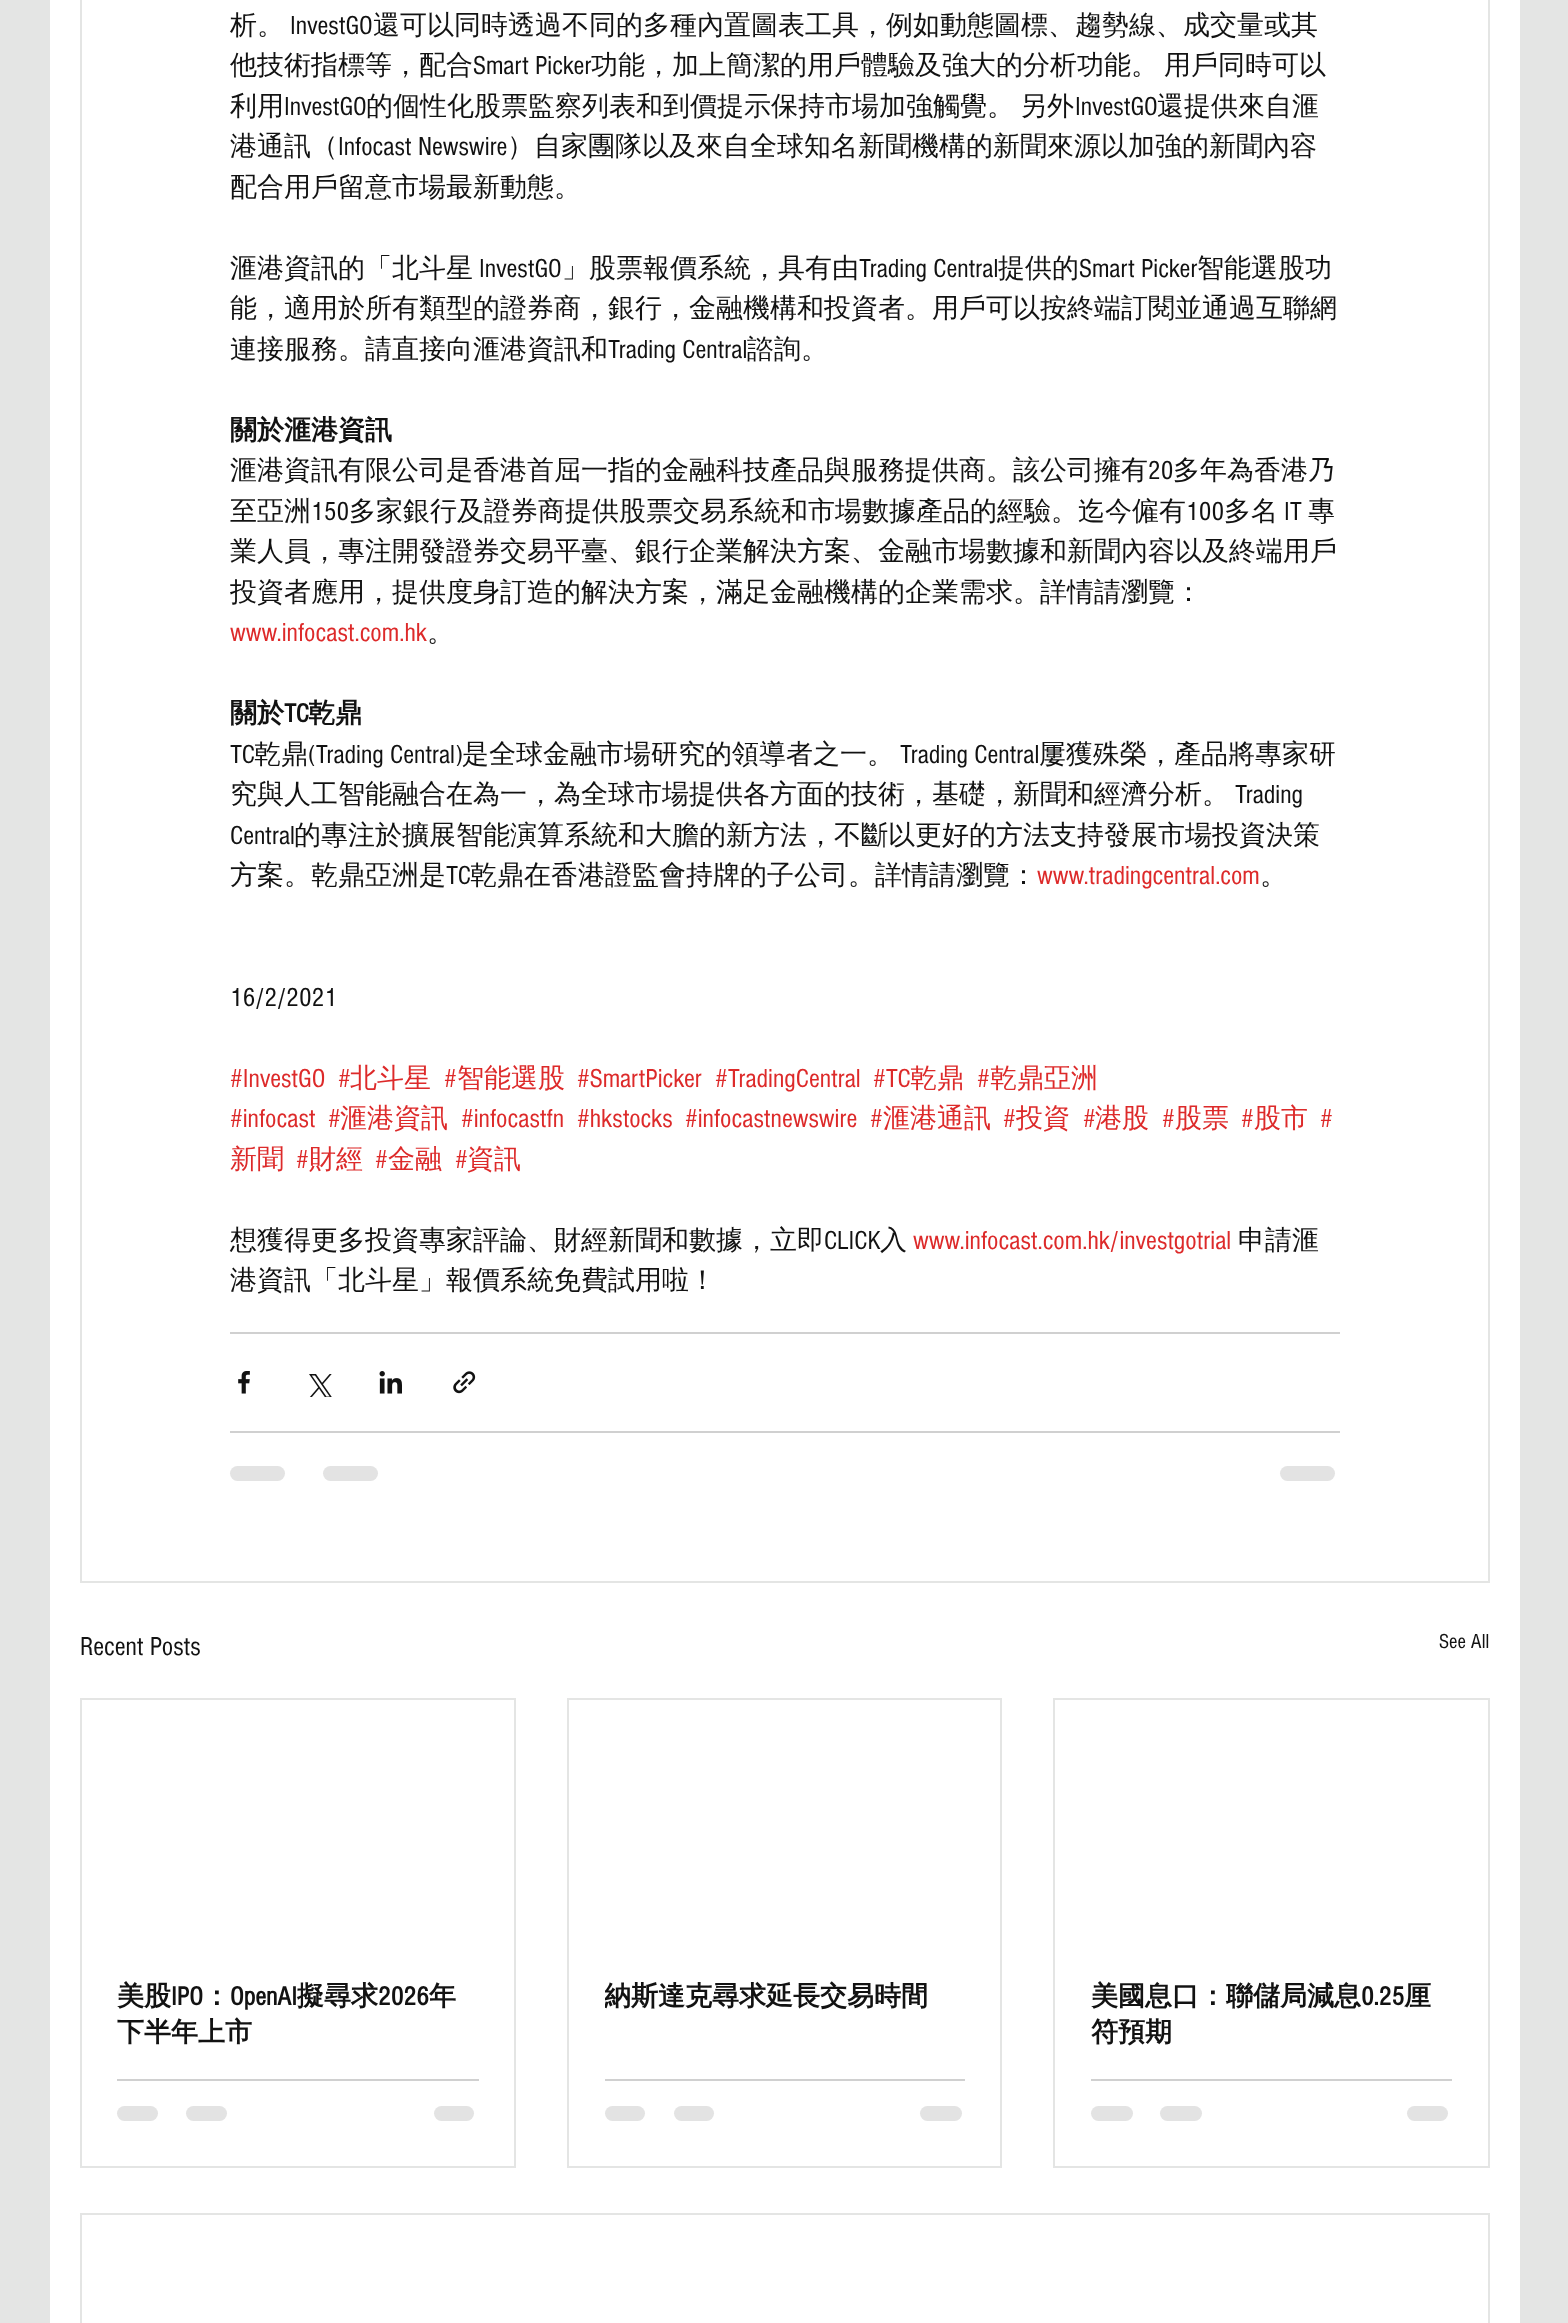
<!DOCTYPE html>
<meta charset="utf-8">
<style>body { margin: 0 } canvas { display: block }</style>
<canvas id="canvas" width="1568" height="2323"></canvas>
<script type="module">
  const canvas = document.getElementById("canvas");
  const ctx = canvas.getContext("2d");
  ctx.miterLimit = 4;
  ctx.fontKerning = "normal";
  async function loadImage(src) {
    const img = new Image();
    img.src = src;
    await img.decode();
    return img;
  }

  ctx.fillStyle = "#e4e5e4";
  ctx.fillRect(0, 0, 1568, 2323);
  ctx.fillStyle = "#ffffff";
  ctx.fillRect(50, 0, 1470, 2323);
  ctx.strokeStyle = "#e4e5e4";
  ctx.lineWidth = 2;
  ctx.strokeRect(81, -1, 1408, 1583);
  ctx.font = "500 27px WenQuanYi Zen Hei";
  ctx.fillStyle = "#121212";
  ctx.fillText("析。", 230, 34);
  ctx.font = "27px 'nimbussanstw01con'";
  ctx.fillText("InvestGO", 290, 34);
  ctx.font = "500 27px WenQuanYi Zen Hei";
  ctx.fillText("還可以同時透過不同的多種內置圖表工具，例如動態圖標、趨勢線、成交量或其", 373, 34);
  ctx.fillText("他技術指標等，配合", 230, 74);
  ctx.font = "27px 'nimbussanstw01con'";
  ctx.fillText("Smart Picker", 473, 74);
  ctx.font = "500 27px WenQuanYi Zen Hei";
  ctx.fillText("功能，加上簡潔的用戶體驗及強大的分析功能。", 591, 74);
  ctx.fillText("用戶同時可以", 1164, 74);
  ctx.fillText("利用", 230, 115);
  ctx.font = "27px 'nimbussanstw01con'";
  ctx.fillText("InvestGO", 284, 115);
  ctx.wordSpacing = "-2px";
  ctx.font = "500 27px WenQuanYi Zen Hei";
  ctx.fillText("的個性化股票監察列表和到價提示保持市場加強觸覺。 另外", 366, 115);
  ctx.wordSpacing = "0px";
  ctx.font = "27px 'nimbussanstw01con'";
  ctx.fillText("InvestGO", 1075, 115);
  ctx.font = "500 27px WenQuanYi Zen Hei";
  ctx.fillText("還提供來自滙", 1157, 115);
  ctx.fillText("港通訊（", 230, 155);
  ctx.font = "27px 'nimbussanstw01con'";
  ctx.fillText("Infocast Newswire", 338, 155);
  ctx.font = "500 27px WenQuanYi Zen Hei";
  ctx.fillText("）自家團隊以及來自全球知名新聞機構的新聞來源以加強的新聞內容", 507, 155);
  ctx.fillText("配合用戶留意市場最新動態。", 230, 196);
  ctx.fillText("滙港資訊的「北斗星", 230, 277);
  ctx.font = "27px 'nimbussanstw01con'";
  ctx.fillText("InvestGO", 479, 277);
  ctx.font = "500 27px WenQuanYi Zen Hei";
  ctx.fillText("」股票報價系統，具有由", 562, 277);
  ctx.font = "27px 'nimbussanstw01con'";
  ctx.fillText("Trading Central", 859, 277);
  ctx.font = "500 27px WenQuanYi Zen Hei";
  ctx.fillText("提供的", 998, 277);
  ctx.font = "27px 'nimbussanstw01con'";
  ctx.fillText("Smart Picker", 1079, 277);
  ctx.font = "500 27px WenQuanYi Zen Hei";
  ctx.fillText("智能選股功", 1197, 277);
  ctx.fillText("能，適用於所有類型的證券商，銀行，金融機構和投資者。用戶可以按終端訂閱並通過互聯網", 230, 317);
  ctx.fillText("連接服務。請直接向滙港資訊和", 230, 358);
  ctx.font = "27px 'nimbussanstw01con'";
  ctx.fillText("Trading Central", 608, 358);
  ctx.font = "500 27px WenQuanYi Zen Hei";
  ctx.fillText("諮詢。", 747, 358);
  ctx.font = "bold 27px WenQuanYi Zen Hei";
  ctx.fillText("關於滙港資訊", 230, 439);
  ctx.font = "500 27px WenQuanYi Zen Hei";
  ctx.fillText("滙港資訊有限公司是香港首屈一指的金融科技產品與服務提供商。該公司擁有", 230, 479);
  ctx.font = "27px 'nimbussanstw01con'";
  ctx.fillText("20", 1148, 479);
  ctx.font = "500 27px WenQuanYi Zen Hei";
  ctx.fillText("多年為香港乃", 1173, 479);
  ctx.fillText("至亞洲", 230, 520);
  ctx.font = "27px 'nimbussanstw01con'";
  ctx.fillText("150", 311, 520);
  ctx.font = "500 27px WenQuanYi Zen Hei";
  ctx.fillText("多家銀行及證券商提供股票交易系統和市場數據產品的經驗。迄今僱有", 349, 520);
  ctx.font = "27px 'nimbussanstw01con'";
  ctx.fillText("100", 1186, 520);
  ctx.font = "500 27px WenQuanYi Zen Hei";
  ctx.fillText("多名", 1224, 520);
  ctx.font = "27px 'nimbussanstw01con'";
  ctx.fillText("IT", 1284, 520);
  ctx.font = "500 27px WenQuanYi Zen Hei";
  ctx.fillText("專", 1308, 520);
  ctx.fillText("業人員，專注開發證券交易平臺、銀行企業解決方案、金融市場數據和新聞內容以及終端用戶", 230, 560);
  ctx.fillText("投資者應用，提供度身訂造的解決方案，滿足金融機構的企業需求。詳情請瀏覽：", 230, 601);
  ctx.font = "27px 'nimbussanstw01con'";
  ctx.fillStyle = "#dd2a2a";
  ctx.fillText("www.infocast.com.hk", 230, 641);
  ctx.font = "500 27px WenQuanYi Zen Hei";
  ctx.fillStyle = "#121212";
  ctx.fillText("。", 427, 641);
  ctx.font = "bold 27px WenQuanYi Zen Hei";
  ctx.fillText("關於", 230, 722);
  ctx.font = "bold 27px 'nimbussanstw01con'";
  ctx.fillText("TC", 284, 722);
  ctx.font = "bold 27px WenQuanYi Zen Hei";
  ctx.fillText("乾鼎", 308, 722);
  ctx.font = "27px 'nimbussanstw01con'";
  ctx.fillText("TC", 230, 763);
  ctx.font = "500 27px WenQuanYi Zen Hei";
  ctx.fillText("乾鼎", 254, 763);
  ctx.font = "27px 'nimbussanstw01con'";
  ctx.fillText("(Trading Central)", 308, 763);
  ctx.font = "500 27px WenQuanYi Zen Hei";
  ctx.fillText("是全球金融市場研究的領導者之一。", 462, 763);
  ctx.font = "27px 'nimbussanstw01con'";
  ctx.fillText("Trading Central", 900, 763);
  ctx.font = "500 27px WenQuanYi Zen Hei";
  ctx.fillText("屢獲殊榮，產品將專家研", 1039, 763);
  ctx.fillText("究與人工智能融合在為一，為全球市場提供各方面的技術，基礎，新聞和經濟分析。", 230, 803);
  ctx.font = "27px 'nimbussanstw01con'";
  ctx.fillText("Trading", 1235, 803);
  ctx.fillText("Central", 230, 844);
  ctx.font = "500 27px WenQuanYi Zen Hei";
  ctx.fillText("的專注於擴展智能演算系統和大膽的新方法，不斷以更好的方法支持發展市場投資決策", 294, 844);
  ctx.fillText("方案。乾鼎亞洲是", 230, 884);
  ctx.font = "27px 'nimbussanstw01con'";
  ctx.fillText("TC", 446, 884);
  ctx.font = "500 27px WenQuanYi Zen Hei";
  ctx.fillText("乾鼎在香港證監會持牌的子公司。詳情請瀏覽：", 470, 884);
  ctx.font = "27px 'nimbussanstw01con'";
  ctx.fillStyle = "#dd2a2a";
  ctx.fillText("www.tradingcentral.com", 1037, 884);
  ctx.font = "500 27px WenQuanYi Zen Hei";
  ctx.fillStyle = "#121212";
  ctx.fillText("。", 1260, 884);
  ctx.font = "27px 'nimbussanstw01con'";
  ctx.fillText("16/2/2021", 230, 1006);
  ctx.fillStyle = "#dd2a2a";
  ctx.fillText("#InvestGO", 230, 1087);
  ctx.fillText("#", 338, 1087);
  ctx.font = "500 27px WenQuanYi Zen Hei";
  ctx.fillText("北斗星", 350, 1087);
  ctx.font = "27px 'nimbussanstw01con'";
  ctx.fillText("#", 444, 1087);
  ctx.font = "500 27px WenQuanYi Zen Hei";
  ctx.fillText("智能選股", 457, 1087);
  ctx.font = "27px 'nimbussanstw01con'";
  ctx.fillText("#SmartPicker", 577, 1087);
  ctx.fillText("#TradingCentral", 715, 1087);
  ctx.fillText("#TC", 873, 1087);
  ctx.font = "500 27px WenQuanYi Zen Hei";
  ctx.fillText("乾鼎", 910, 1087);
  ctx.font = "27px 'nimbussanstw01con'";
  ctx.fillText("#", 977, 1087);
  ctx.font = "500 27px WenQuanYi Zen Hei";
  ctx.fillText("乾鼎亞洲", 990, 1087);
  ctx.font = "27px 'nimbussanstw01con'";
  ctx.fillText("#infocast", 230, 1127);
  ctx.fillText("#", 328, 1127);
  ctx.font = "500 27px WenQuanYi Zen Hei";
  ctx.fillText("滙港資訊", 340, 1127);
  ctx.font = "27px 'nimbussanstw01con'";
  ctx.fillText("#infocastfn", 461, 1127);
  ctx.fillText("#hkstocks", 577, 1127);
  ctx.fillText("#infocastnewswire", 685, 1127);
  ctx.fillText("#", 870, 1127);
  ctx.font = "500 27px WenQuanYi Zen Hei";
  ctx.fillText("滙港通訊", 883, 1127);
  ctx.font = "27px 'nimbussanstw01con'";
  ctx.fillText("#", 1003, 1127);
  ctx.font = "500 27px WenQuanYi Zen Hei";
  ctx.fillText("投資", 1016, 1127);
  ctx.font = "27px 'nimbussanstw01con'";
  ctx.fillText("#", 1083, 1127);
  ctx.font = "500 27px WenQuanYi Zen Hei";
  ctx.fillText("港股", 1095, 1127);
  ctx.font = "27px 'nimbussanstw01con'";
  ctx.fillText("#", 1162, 1127);
  ctx.font = "500 27px WenQuanYi Zen Hei";
  ctx.fillText("股票", 1175, 1127);
  ctx.font = "27px 'nimbussanstw01con'";
  ctx.fillText("#", 1241, 1127);
  ctx.font = "500 27px WenQuanYi Zen Hei";
  ctx.fillText("股市", 1254, 1127);
  ctx.font = "27px 'nimbussanstw01con'";
  ctx.fillText("#", 1320, 1127);
  ctx.font = "500 27px WenQuanYi Zen Hei";
  ctx.fillText("新聞", 230, 1168);
  ctx.font = "27px 'nimbussanstw01con'";
  ctx.fillText("#", 296, 1168);
  ctx.font = "500 27px WenQuanYi Zen Hei";
  ctx.fillText("財經", 309, 1168);
  ctx.font = "27px 'nimbussanstw01con'";
  ctx.fillText("#", 375, 1168);
  ctx.font = "500 27px WenQuanYi Zen Hei";
  ctx.fillText("金融", 388, 1168);
  ctx.font = "27px 'nimbussanstw01con'";
  ctx.fillText("#", 455, 1168);
  ctx.font = "500 27px WenQuanYi Zen Hei";
  ctx.fillText("資訊", 467, 1168);
  ctx.fillStyle = "#121212";
  ctx.fillText("想獲得更多投資專家評論、財經新聞和數據，立即", 230, 1249);
  ctx.font = "27px 'nimbussanstw01con'";
  ctx.fillText("CLICK", 824, 1249);
  ctx.font = "500 27px WenQuanYi Zen Hei";
  ctx.fillText("入", 880, 1249);
  ctx.font = "27px 'nimbussanstw01con'";
  ctx.fillStyle = "#dd2a2a";
  ctx.fillText("www.infocast.com.hk/investgotrial", 913, 1249);
  ctx.font = "500 27px WenQuanYi Zen Hei";
  ctx.fillStyle = "#121212";
  ctx.fillText("申請滙", 1238, 1249);
  ctx.fillText("港資訊「北斗星」報價系統免費試用啦！", 230, 1289);
  ctx.fillStyle = "#d0d0d0";
  ctx.fillRect(230, 1332, 1110, 2);
  ctx.drawImage(await loadImage("img1.png"), 238, 1371, 12, 23);
  ctx.drawImage(await loadImage("img2.png"), 309, 1374, 23, 23);
  ctx.drawImage(await loadImage("img3.png"), 379, 1371, 23, 23);
  ctx.drawImage(await loadImage("img4.png"), 453, 1371, 23, 23);
  ctx.fillRect(230, 1431, 1110, 2);
  ctx.fillStyle = "#e3e3e3";
  ctx.beginPath();
  ctx.roundRect(230, 1466, 55, 15, 7.5);
  ctx.fill();
  ctx.beginPath();
  ctx.roundRect(323, 1466, 55, 15, 7.5);
  ctx.fill();
  ctx.beginPath();
  ctx.roundRect(1280, 1466, 55, 15, 7.5);
  ctx.fill();
  ctx.font = "27px 'nimbussanstw01con'";
  ctx.fillStyle = "#121212";
  ctx.fillText("Recent Posts", 80, 1655);
  ctx.font = "21px 'nimbussanstw01con'";
  ctx.fillText("See All", 1439, 1648);
  ctx.strokeRect(81, 1699, 434, 468);
  ctx.font = "bold 27px WenQuanYi Zen Hei";
  ctx.fillText("美股", 117, 2005);
  ctx.font = "bold 27px 'nimbussanstw01con'";
  ctx.fillText("IPO", 171, 2005);
  ctx.font = "bold 27px WenQuanYi Zen Hei";
  ctx.fillText("：", 203, 2005);
  ctx.font = "bold 27px 'nimbussanstw01con'";
  ctx.fillText("OpenAI", 230, 2005);
  ctx.font = "bold 27px WenQuanYi Zen Hei";
  ctx.fillText("擬尋求", 297, 2005);
  ctx.font = "bold 27px 'nimbussanstw01con'";
  ctx.fillText("2026", 378, 2005);
  ctx.font = "bold 27px WenQuanYi Zen Hei";
  ctx.fillText("年", 429, 2005);
  ctx.fillText("下半年上市", 117, 2041);
  ctx.fillStyle = "#d0d0d0";
  ctx.fillRect(117, 2079, 362, 2);
  ctx.fillStyle = "#e3e3e3";
  ctx.beginPath();
  ctx.roundRect(117, 2106, 41, 15, 7.5);
  ctx.fill();
  ctx.beginPath();
  ctx.roundRect(186, 2106, 41, 15, 7.5);
  ctx.fill();
  ctx.beginPath();
  ctx.roundRect(434, 2106, 40, 15, 7.5);
  ctx.fill();
  ctx.strokeRect(568, 1699, 433, 468);
  ctx.save();
  ctx.beginPath();
  ctx.rect(605, 1979, 360, 36);
  ctx.clip();
  ctx.fillStyle = "#121212";
  ctx.fillText("納斯達克尋求延長交易時間", 604, 2005);
  ctx.restore();
  ctx.fillStyle = "#d0d0d0";
  ctx.fillRect(605, 2079, 360, 2);
  ctx.fillStyle = "#e3e3e3";
  ctx.beginPath();
  ctx.roundRect(605, 2106, 40, 15, 7.5);
  ctx.fill();
  ctx.beginPath();
  ctx.roundRect(674, 2106, 40, 15, 7.5);
  ctx.fill();
  ctx.beginPath();
  ctx.roundRect(920, 2106, 42, 15, 7.5);
  ctx.fill();
  ctx.strokeRect(1054, 1699, 435, 468);
  ctx.fillStyle = "#121212";
  ctx.fillText("美國息口：聯儲局減息", 1091, 2005);
  ctx.font = "bold 27px 'nimbussanstw01con'";
  ctx.fillText("0.25", 1361, 2005);
  ctx.font = "bold 27px WenQuanYi Zen Hei";
  ctx.fillText("厘", 1404, 2005);
  ctx.fillText("符預期", 1091, 2041);
  ctx.fillStyle = "#d0d0d0";
  ctx.fillRect(1091, 2079, 361, 2);
  ctx.fillStyle = "#e3e3e3";
  ctx.beginPath();
  ctx.roundRect(1091, 2106, 42, 15, 7.5);
  ctx.fill();
  ctx.beginPath();
  ctx.roundRect(1160, 2106, 42, 15, 7.5);
  ctx.fill();
  ctx.beginPath();
  ctx.roundRect(1407, 2106, 41, 15, 7.5);
  ctx.fill();
  ctx.strokeRect(81, 2214, 1408, 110);
</script>
